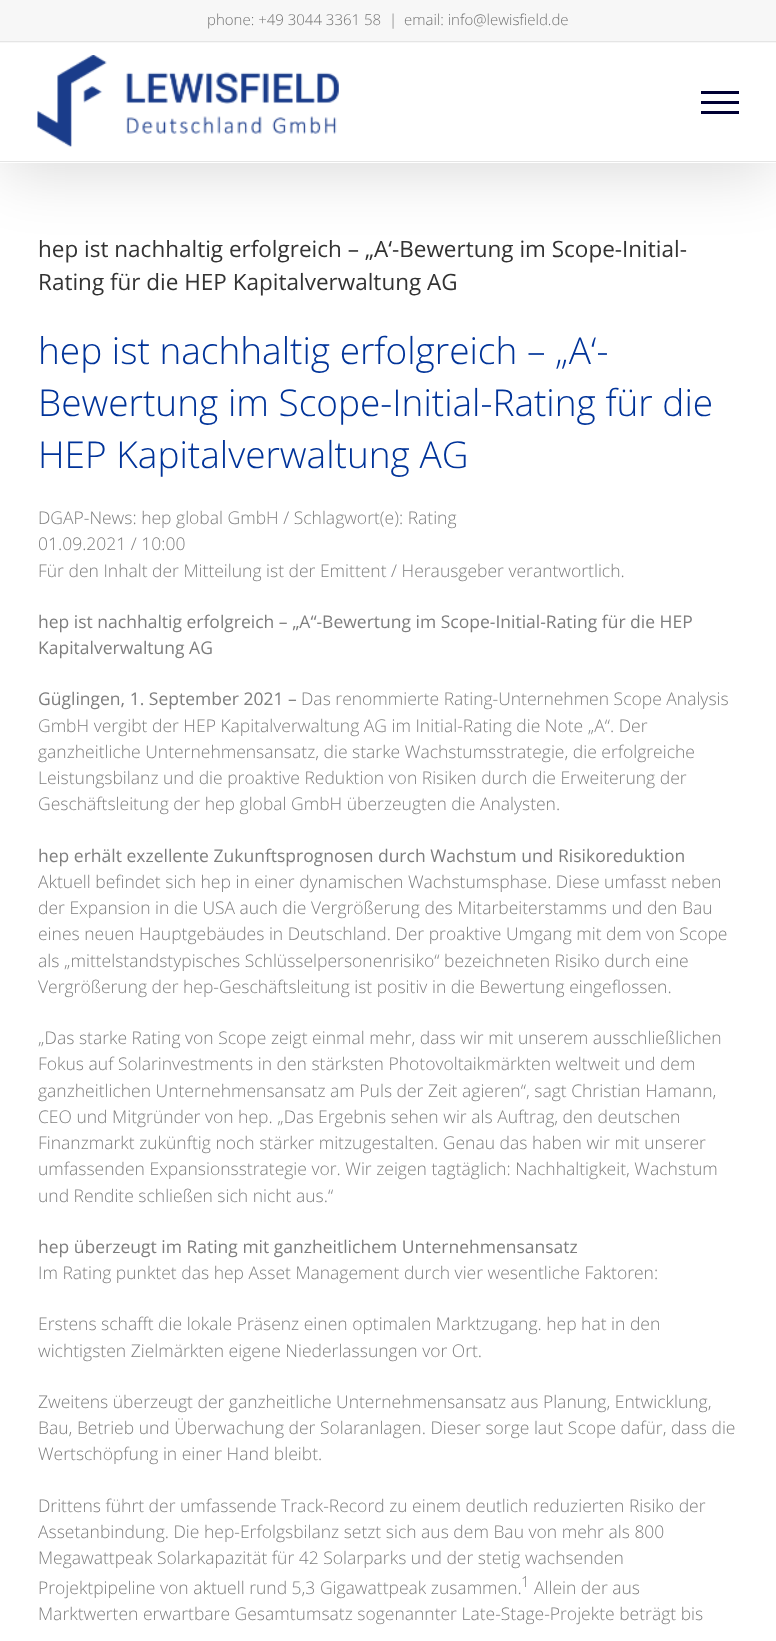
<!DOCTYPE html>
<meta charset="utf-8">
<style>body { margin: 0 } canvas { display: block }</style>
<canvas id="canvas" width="776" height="1641"></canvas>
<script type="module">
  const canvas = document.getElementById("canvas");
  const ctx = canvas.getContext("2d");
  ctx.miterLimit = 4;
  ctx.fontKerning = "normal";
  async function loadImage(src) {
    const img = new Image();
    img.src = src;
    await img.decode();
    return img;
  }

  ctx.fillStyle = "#ffffff";
  ctx.fillRect(0, 0, 776, 1641);
  ctx.fillStyle = "rgba(0, 0, 0, 0.14)";
  ctx.filter = "blur(31px)";
  ctx.beginPath();
  ctx.rect(3, 15, 771, 158);
  ctx.fill();
  ctx.filter = "none";
  ctx.fillStyle = "#f7f7f7";
  ctx.fillRect(0, 0, 776, 43);
  ctx.fillStyle = "#e5e5e5";
  ctx.fillRect(0, 41, 776, 1);
  ctx.font = "300 15px Open Sans";
  ctx.fillStyle = "#747474";
  ctx.fillText("phone: +49 3044 3361 58", 207, 25);
  ctx.fillText("|", 389, 25);
  ctx.fillText("email: info@lewisfield.de", 404, 25);
  ctx.fillStyle = "#ffffff";
  ctx.fillRect(0, 43, 776, 120);
  ctx.fillStyle = "#e5e5e5";
  ctx.fillRect(0, 161, 776, 1);
  ctx.drawImage(await loadImage("img1.png"), 37, 55, 302, 92);
  ctx.fillStyle = "#000033";
  ctx.fillRect(701, 91, 38, 3);
  ctx.fillRect(701, 101, 38, 3);
  ctx.fillRect(701, 111, 38, 3);
  ctx.font = "22.5px Open Sans";
  ctx.fillStyle = "#333333";
  ctx.fillText("hep ist nachhaltig erfolgreich – „A‘-Bewertung im Scope-Initial-", 38, 257);
  ctx.fillText("Rating für die HEP Kapitalverwaltung AG", 38, 290);
  ctx.font = "300 37px Open Sans";
  ctx.fillStyle = "#003399";
  ctx.fillText("hep ist nachhaltig erfolgreich – „A‘-", 38, 364);
  ctx.fillText("Bewertung im Scope-Initial-Rating für die", 38, 416);
  ctx.fillText("HEP Kapitalverwaltung AG", 38, 468);
  ctx.font = "300 17.5px Open Sans";
  ctx.fillStyle = "#7e7e7e";
  ctx.fillText("DGAP-News: hep global GmbH / Schlagwort(e): Rating", 38, 524);
  ctx.fillText("01.09.2021 / 10:00", 38, 550);
  ctx.fillText("Für den Inhalt der Mitteilung ist der Emittent / Herausgeber verantwortlich.", 38, 577);
  ctx.font = "17.5px Open Sans";
  ctx.fillText("hep ist nachhaltig erfolgreich – „A“-Bewertung im Scope-Initial-Rating für die HEP", 38, 628);
  ctx.fillText("Kapitalverwaltung AG", 38, 654);
  ctx.fillText("Güglingen, 1. September 2021 –", 38, 705);
  ctx.font = "300 17.5px Open Sans";
  ctx.fillText("Das renommierte Rating-Unternehmen Scope Analysis", 301, 705);
  ctx.fillText("GmbH vergibt der HEP Kapitalverwaltung AG im Initial-Rating die Note „A“. Der", 38, 732);
  ctx.fillText("ganzheitliche Unternehmensansatz, die starke Wachstumsstrategie, die erfolgreiche", 38, 758);
  ctx.fillText("Leistungsbilanz und die proaktive Reduktion von Risiken durch die Erweiterung der", 38, 784);
  ctx.fillText("Geschäftsleitung der hep global GmbH überzeugten die Analysten.", 38, 810);
  ctx.font = "17.5px Open Sans";
  ctx.fillText("hep erhält exzellente Zukunftsprognosen durch Wachstum und Risikoreduktion", 38, 862);
  ctx.font = "300 17.5px Open Sans";
  ctx.fillText("Aktuell befindet sich hep in einer dynamischen Wachstumsphase. Diese umfasst neben", 38, 888);
  ctx.fillText("der Expansion in die USA auch die Vergrößerung des Mitarbeiterstamms und den Bau", 38, 914);
  ctx.fillText("eines neuen Hauptgebäudes in Deutschland. Der proaktive Umgang mit dem von Scope", 38, 940);
  ctx.fillText("als „mittelstandstypisches Schlüsselpersonenrisiko“ bezeichneten Risiko durch eine", 38, 967);
  ctx.fillText("Vergrößerung der hep-Geschäftsleitung ist positiv in die Bewertung eingeflossen.", 38, 993);
  ctx.fillText("„Das starke Rating von Scope zeigt einmal mehr, dass wir mit unserem ausschließlichen", 38, 1044);
  ctx.fillText("Fokus auf Solarinvestments in den stärksten Photovoltaikmärkten weltweit und dem", 38, 1070);
  ctx.fillText("ganzheitlichen Unternehmensansatz am Puls der Zeit agieren“, sagt Christian Hamann,", 38, 1097);
  ctx.fillText("CEO und Mitgründer von hep. „Das Ergebnis sehen wir als Auftrag, den deutschen", 38, 1123);
  ctx.fillText("Finanzmarkt zukünftig noch stärker mitzugestalten. Genau das haben wir mit unserer", 38, 1149);
  ctx.fillText("umfassenden Expansionsstrategie vor. Wir zeigen tagtäglich: Nachhaltigkeit, Wachstum", 38, 1175);
  ctx.fillText("und Rendite schließen sich nicht aus.“", 38, 1202);
  ctx.font = "17.5px Open Sans";
  ctx.fillText("hep überzeugt im Rating mit ganzheitlichem Unternehmensansatz", 38, 1253);
  ctx.font = "300 17.5px Open Sans";
  ctx.fillText("Im Rating punktet das hep Asset Management durch vier wesentliche Faktoren:", 38, 1279);
  ctx.fillText("Erstens schafft die lokale Präsenz einen optimalen Marktzugang. hep hat in den", 38, 1330);
  ctx.fillText("wichtigsten Zielmärkten eigene Niederlassungen vor Ort.", 38, 1357);
  ctx.fillText("Zweitens überzeugt der ganzheitliche Unternehmensansatz aus Planung, Entwicklung,", 38, 1408);
  ctx.fillText("Bau, Betrieb und Überwachung der Solaranlagen. Dieser sorge laut Scope dafür, dass die", 38, 1434);
  ctx.fillText("Wertschöpfung in einer Hand bleibt.", 38, 1460);
  ctx.fillText("Drittens führt der umfassende Track-Record zu einem deutlich reduzierten Risiko der", 38, 1512);
  ctx.fillText("Assetanbindung. Die hep-Erfolgsbilanz setzt sich aus dem Bau von mehr als 800", 38, 1538);
  ctx.fillText("Megawattpeak Solarkapazität für 42 Solarparks und der stetig wachsenden", 38, 1564);
  ctx.fillText("Projektpipeline von aktuell rund 5,3 Gigawattpeak zusammen.", 38, 1594);
  ctx.font = "300 15px Open Sans";
  ctx.fillText("1", 521, 1587);
  ctx.font = "300 17.5px Open Sans";
  ctx.fillText("Allein der aus", 534, 1594);
  ctx.fillText("Marktwerten erwartbare Gesamtumsatz sogenannter Late-Stage-Projekte beträgt bis", 38, 1620);
</script>
